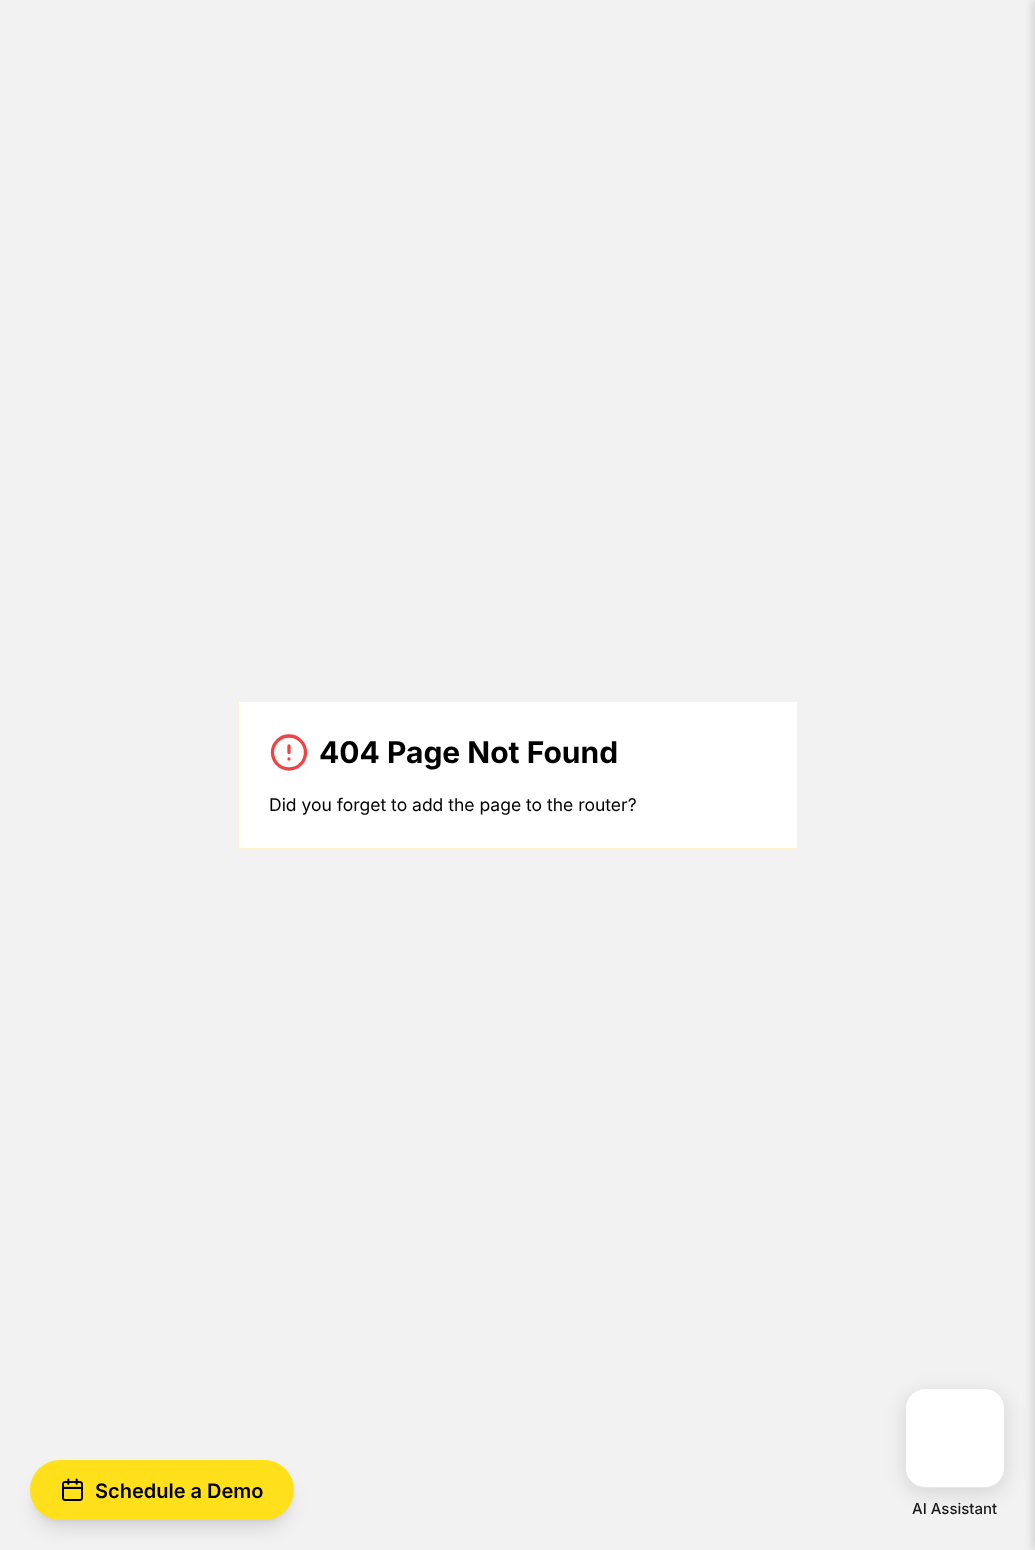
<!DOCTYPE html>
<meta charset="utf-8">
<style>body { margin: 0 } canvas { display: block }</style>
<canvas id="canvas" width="1035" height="1550"></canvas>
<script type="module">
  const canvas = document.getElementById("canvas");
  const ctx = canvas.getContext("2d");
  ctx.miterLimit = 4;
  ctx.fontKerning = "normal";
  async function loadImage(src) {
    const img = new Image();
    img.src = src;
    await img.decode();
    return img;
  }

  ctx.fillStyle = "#f2f2f2";
  ctx.fillRect(0, 0, 1035, 1550);
  ctx.fillStyle = "#ffffff";
  ctx.beginPath();
  ctx.rect(238.5, 701.5, 559, 147);
  ctx.fill();
  ctx.strokeStyle = "#fff2cc";
  ctx.stroke();
  ctx.beginPath();
  ctx.arc(289, 752.5, 16.5, 0, Math.PI * 2);
  ctx.strokeStyle = "#ef4444";
  ctx.lineWidth = 3.3;
  ctx.stroke();
  ctx.beginPath();
  ctx.moveTo(289, 746);
  ctx.lineTo(289, 752.5);
  ctx.moveTo(289, 759);
  ctx.lineTo(289, 759);
  ctx.lineCap = "round";
  ctx.lineJoin = "round";
  ctx.stroke();
  ctx.font = "bold 30px Inter";
  ctx.fillStyle = "#000000";
  ctx.fillText("404 Page Not Found", 319, 763);
  ctx.font = "17.5px Inter";
  ctx.fillText("Did you forget to add the page to the router?", 269, 811);
  ctx.fillStyle = "rgba(0, 0, 0, 0.15)";
  ctx.filter = "blur(5px)";
  ctx.beginPath();
  ctx.rect(1033, 0, 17, 1550);
  ctx.fill();
  ctx.filter = "none";
  ctx.fillStyle = "rgba(0, 0, 0, 0.1)";
  ctx.filter = "blur(4px)";
  ctx.beginPath();
  ctx.roundRect(35, 1470, 254, 50, 25);
  ctx.fill();
  ctx.filter = "none";
  ctx.filter = "blur(9.5px)";
  ctx.beginPath();
  ctx.roundRect(34, 1476, 256, 53, 26.5);
  ctx.fill();
  ctx.filter = "none";
  ctx.fillStyle = "#ffe01a";
  ctx.beginPath();
  ctx.roundRect(30, 1460, 264, 60, 30);
  ctx.fill();
  ctx.drawImage(await loadImage("img1.png"), 62, 1478, 21, 23);
  ctx.font = "600 20px Inter";
  ctx.fillStyle = "#000000";
  ctx.fillText("Schedule a Demo", 95, 1498);
  ctx.fillStyle = "rgba(0, 0, 0, 0.12)";
  ctx.filter = "blur(10px)";
  ctx.beginPath();
  ctx.roundRect(905, 1393, 100, 100, 20);
  ctx.fill();
  ctx.filter = "none";
  ctx.fillStyle = "#ffffff";
  ctx.beginPath();
  ctx.roundRect(905.5, 1388.5, 99, 99, 19.5);
  ctx.fill();
  ctx.strokeStyle = "#e5e7eb";
  ctx.lineWidth = 1;
  ctx.lineJoin = "miter";
  ctx.stroke();
  ctx.font = "500 15px Inter";
  ctx.fillStyle = "#1a1a1a";
  ctx.fillText("AI Assistant", 912, 1514);
</script>
